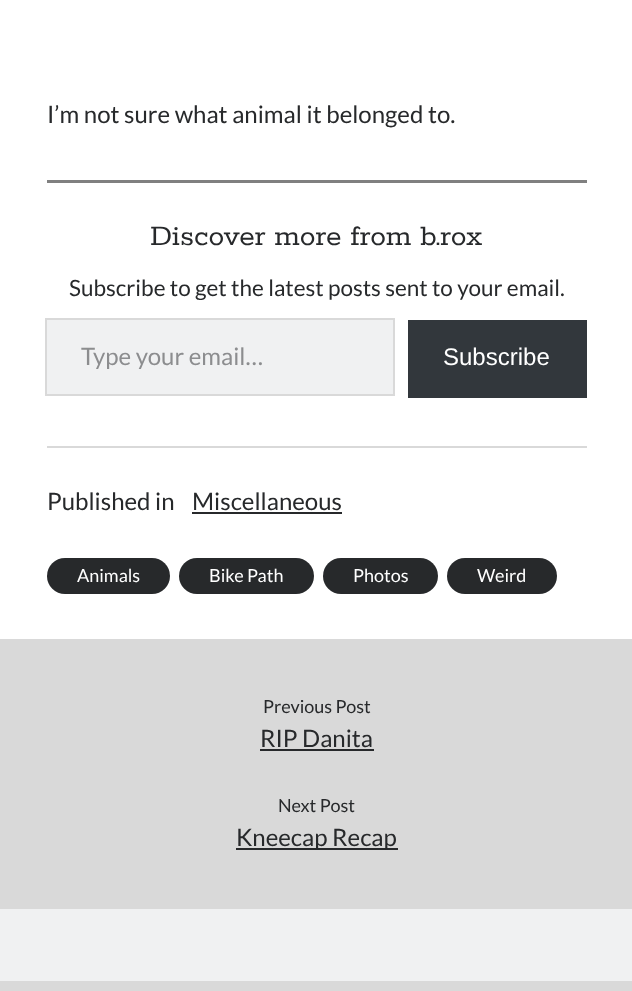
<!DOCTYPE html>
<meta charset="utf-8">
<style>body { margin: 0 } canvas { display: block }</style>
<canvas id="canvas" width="632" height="991"></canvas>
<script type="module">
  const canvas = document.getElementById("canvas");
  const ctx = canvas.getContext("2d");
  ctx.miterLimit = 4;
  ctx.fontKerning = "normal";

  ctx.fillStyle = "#f0f1f2";
  ctx.fillRect(0, 0, 632, 991);
  ctx.fillStyle = "#ffffff";
  ctx.fillRect(0, 0, 632, 639);
  ctx.fillStyle = "#d9d9d9";
  ctx.fillRect(47, 446, 540, 2);
  ctx.font = "24px Lato";
  ctx.fillStyle = "#27292b";
  ctx.fillText("I’m not sure what animal it belonged to.", 47, 123);
  ctx.fillStyle = "#808080";
  ctx.fillRect(47, 180, 540, 3);
  ctx.font = "31.5px Rokkitt";
  ctx.fillStyle = "#27292b";
  ctx.fillText("Discover more from b.rox", 150, 245);
  ctx.font = "22.5px Lato";
  ctx.fillText("Subscribe to get the latest posts sent to your email.", 69, 296);
  ctx.fillStyle = "#f0f1f2";
  ctx.fillRect(47, 320, 346, 74);
  ctx.strokeStyle = "#d9d9d9";
  ctx.lineWidth = 2;
  ctx.strokeRect(46, 319, 348, 76);
  ctx.font = "24px Lato";
  ctx.fillStyle = "#8c8d8f";
  ctx.fillText("Type your email…", 81, 365);
  ctx.fillStyle = "#32373c";
  ctx.fillRect(408, 320, 179, 78);
  ctx.font = "24px Liberation Sans";
  ctx.fillStyle = "#ffffff";
  ctx.fillText("Subscribe", 443, 365);
  ctx.font = "24px Lato";
  ctx.fillStyle = "#27292b";
  ctx.fillText("Published in", 47, 510);
  ctx.fillText("Miscellaneous", 192, 510);
  ctx.fillRect(192, 512, 150, 2);
  ctx.beginPath();
  ctx.roundRect(47, 558, 123, 36, 18);
  ctx.fill();
  ctx.font = "18px Lato";
  ctx.fillStyle = "#ffffff";
  ctx.fillText("Animals", 77, 582);
  ctx.fillStyle = "#27292b";
  ctx.beginPath();
  ctx.roundRect(179, 558, 135, 36, 18);
  ctx.fill();
  ctx.fillStyle = "#ffffff";
  ctx.fillText("Bike Path", 209, 582);
  ctx.fillStyle = "#27292b";
  ctx.beginPath();
  ctx.roundRect(323, 558, 115, 36, 18);
  ctx.fill();
  ctx.fillStyle = "#ffffff";
  ctx.fillText("Photos", 353, 582);
  ctx.fillStyle = "#27292b";
  ctx.beginPath();
  ctx.roundRect(447, 558, 110, 36, 18);
  ctx.fill();
  ctx.fillStyle = "#ffffff";
  ctx.fillText("Weird", 477, 582);
  ctx.fillStyle = "#d9d9d9";
  ctx.fillRect(0, 639, 632, 270);
  ctx.fillStyle = "#27292b";
  ctx.fillText("Previous Post", 263, 713);
  ctx.font = "24px Lato";
  ctx.fillText("RIP Danita", 260, 747);
  ctx.fillRect(260, 749, 114, 2);
  ctx.font = "18px Lato";
  ctx.fillText("Next Post", 278, 812);
  ctx.fillRect(236, 848, 162, 2);
  ctx.font = "24px Lato";
  ctx.fillText("Kneecap Recap", 236, 846);
  ctx.fillStyle = "#d9d9d9";
  ctx.fillRect(0, 981, 632, 10);
</script>
